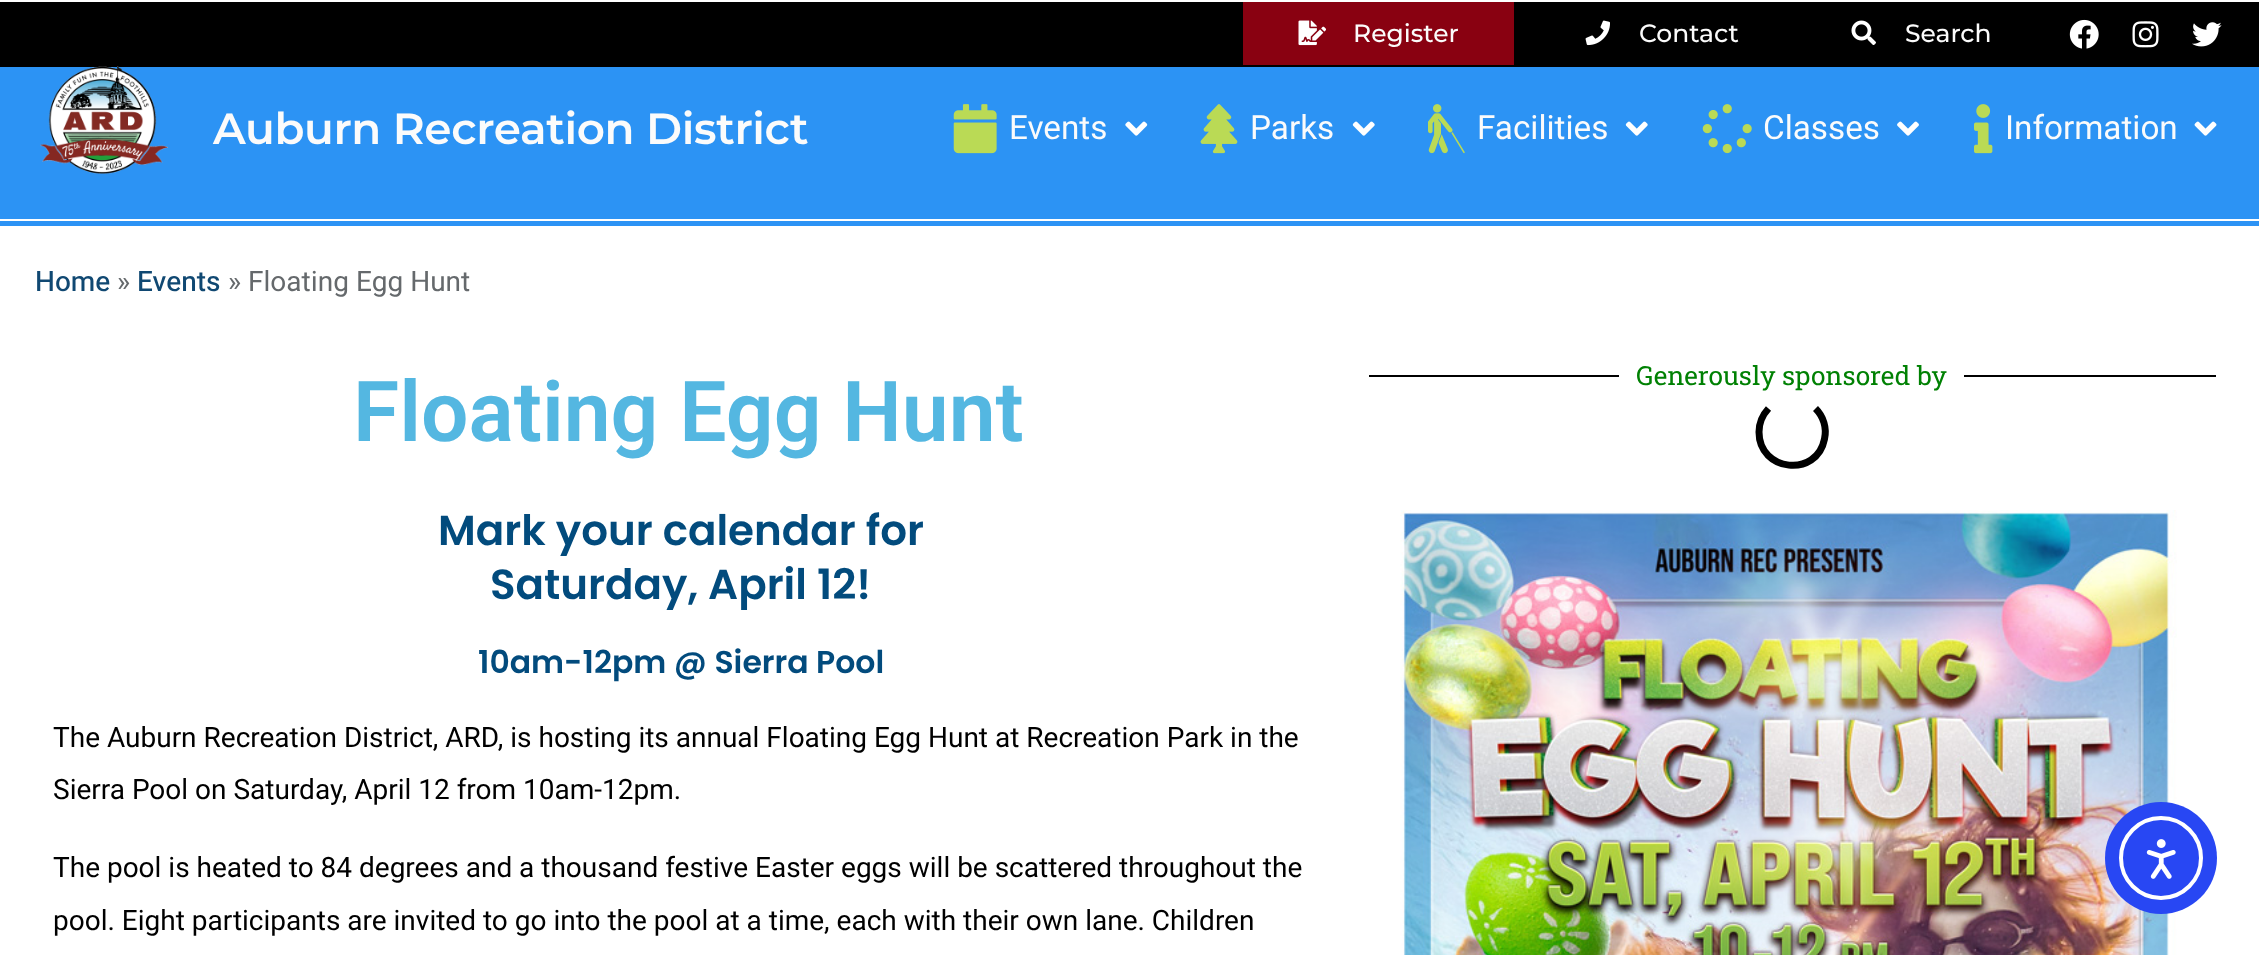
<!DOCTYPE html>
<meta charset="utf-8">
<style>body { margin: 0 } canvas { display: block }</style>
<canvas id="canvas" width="2259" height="955"></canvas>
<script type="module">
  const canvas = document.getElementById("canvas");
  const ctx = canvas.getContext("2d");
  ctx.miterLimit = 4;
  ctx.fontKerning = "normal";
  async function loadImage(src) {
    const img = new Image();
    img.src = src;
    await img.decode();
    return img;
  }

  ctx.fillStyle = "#ffffff";
  ctx.fillRect(0, 0, 2259, 955);
  ctx.fillStyle = "#000000";
  ctx.fillRect(0, 2, 2259, 65);
  ctx.fillStyle = "#890111";
  ctx.fillRect(1243, 2, 271, 63);
  ctx.drawImage(await loadImage("img1.png"), 1298, 20, 28, 26);
  ctx.font = "500 25px Montserrat";
  ctx.fillStyle = "#fbfbfb";
  ctx.fillText("Register", 1353, 42);
  ctx.drawImage(await loadImage("img2.png"), 1585, 20, 25, 26);
  ctx.fillText("Contact", 1639, 42);
  ctx.drawImage(await loadImage("img3.png"), 1851, 20, 25, 25);
  ctx.fillText("Search", 1905, 42);
  ctx.drawImage(await loadImage("img4.png"), 2069, 19, 30, 30);
  ctx.drawImage(await loadImage("img5.png"), 2132, 21, 27, 27);
  ctx.drawImage(await loadImage("img6.png"), 2192, 22, 30, 25);
  ctx.fillStyle = "#2c93f4";
  ctx.fillRect(0, 72, 2259, 147);
  ctx.fillStyle = "#2c93f5";
  ctx.fillRect(0, 67, 2259, 5);
  ctx.drawImage(await loadImage("img7.png"), 40, 66, 128, 108);
  ctx.letterSpacing = "-0.35px";
  ctx.font = "600 43.75px Montserrat";
  ctx.fillStyle = "#fbfbfb";
  ctx.fillText("Auburn Recreation District", 213, 144);
  ctx.drawImage(await loadImage("img8.png"), 953, 104, 44, 50);
  ctx.letterSpacing = "0px";
  ctx.font = "33.25px Roboto";
  ctx.fillText("Events", 1009, 139);
  ctx.drawImage(await loadImage("img9.png"), 1125, 121, 23, 15);
  ctx.drawImage(await loadImage("img10.png"), 1200, 104, 38, 50);
  ctx.fillText("Parks", 1250, 139);
  ctx.drawImage(await loadImage("img11.png"), 1352, 121, 23, 15);
  ctx.drawImage(await loadImage("img12.png"), 1428, 104, 37, 50);
  ctx.fillText("Facilities", 1477, 139);
  ctx.drawImage(await loadImage("img11.png"), 1625, 121, 23, 15);
  ctx.drawImage(await loadImage("img13.png"), 1702, 104, 50, 50);
  ctx.fillText("Classes", 1763, 139);
  ctx.drawImage(await loadImage("img14.png"), 1897, 121, 22, 15);
  ctx.drawImage(await loadImage("img15.png"), 1974, 104, 19, 50);
  ctx.fillText("Information", 2005, 139);
  ctx.drawImage(await loadImage("img16.png"), 2194, 121, 23, 15);
  ctx.fillStyle = "#2c93f5";
  ctx.fillRect(0, 221, 2259, 5);
  ctx.font = "500 28px Heebo";
  ctx.fillStyle = "#104872";
  ctx.fillText("Home", 35, 291);
  ctx.font = "28px Heebo";
  ctx.fillStyle = "#65696c";
  ctx.fillText("»", 117, 291);
  ctx.font = "500 28px Heebo";
  ctx.fillStyle = "#104872";
  ctx.fillText("Events", 137, 291);
  ctx.font = "28px Heebo";
  ctx.fillStyle = "#65696c";
  ctx.fillText("» Floating Egg Hunt", 228, 291);
  ctx.font = "600 84px Roboto";
  ctx.fillStyle = "#54b7e1";
  ctx.fillText("Floating Egg Hunt", 353, 441);
  ctx.fillStyle = "#000000";
  ctx.fillRect(1369, 375, 250, 2);
  ctx.font = "26.25px Roboto Slab";
  ctx.fillStyle = "#008103";
  ctx.fillText("Generously sponsored by", 1636, 385);
  ctx.fillStyle = "#000000";
  ctx.fillRect(1964, 375, 252, 2);
  ctx.beginPath();
  ctx.moveTo(1815.5, 408.5);
  ctx.bezierCurveTo(1823.5, 416.5, 1827, 428, 1824.5, 439);
  ctx.bezierCurveTo(1817, 478, 1759, 472, 1759, 432);
  ctx.bezierCurveTo(1759, 423.5, 1762.5, 415, 1768.5, 408.5);
  ctx.strokeStyle = "#000000";
  ctx.lineWidth = 7;
  ctx.stroke();
  ctx.font = "600 42px Poppins";
  ctx.fillStyle = "#024b7d";
  ctx.fillText("Mark your calendar for", 438, 545);
  ctx.fillText("Saturday, April 12!", 490, 599);
  ctx.font = "600 31.5px Poppins";
  ctx.fillText("10am-12pm @ Sierra Pool", 478, 673);
  ctx.font = "28px Roboto";
  ctx.fillStyle = "#000000";
  ctx.fillText("The Auburn Recreation District, ARD, is hosting its annual Floating Egg Hunt at Recreation Park in the", 53, 747);
  ctx.fillText("Sierra Pool on Saturday, April 12 from 10am-12pm.", 53, 799);
  ctx.fillText("The pool is heated to 84 degrees and a thousand festive Easter eggs will be scattered throughout the", 53, 877);
  ctx.fillText("pool. Eight participants are invited to go into the pool at a time, each with their own lane. Children", 53, 930);
  ctx.drawImage(await loadImage("img17.png"), 1400, 510, 777, 445);
  ctx.fillStyle = "#2847f3";
  ctx.beginPath();
  ctx.arc(2161, 858, 56, 0, Math.PI * 2);
  ctx.fill();
  ctx.beginPath();
  ctx.arc(2161, 858, 40, 0, Math.PI * 2);
  ctx.strokeStyle = "#ffffff";
  ctx.lineWidth = 4;
  ctx.stroke();
  ctx.drawImage(await loadImage("img18.png"), 2146, 839, 30, 40);
</script>
